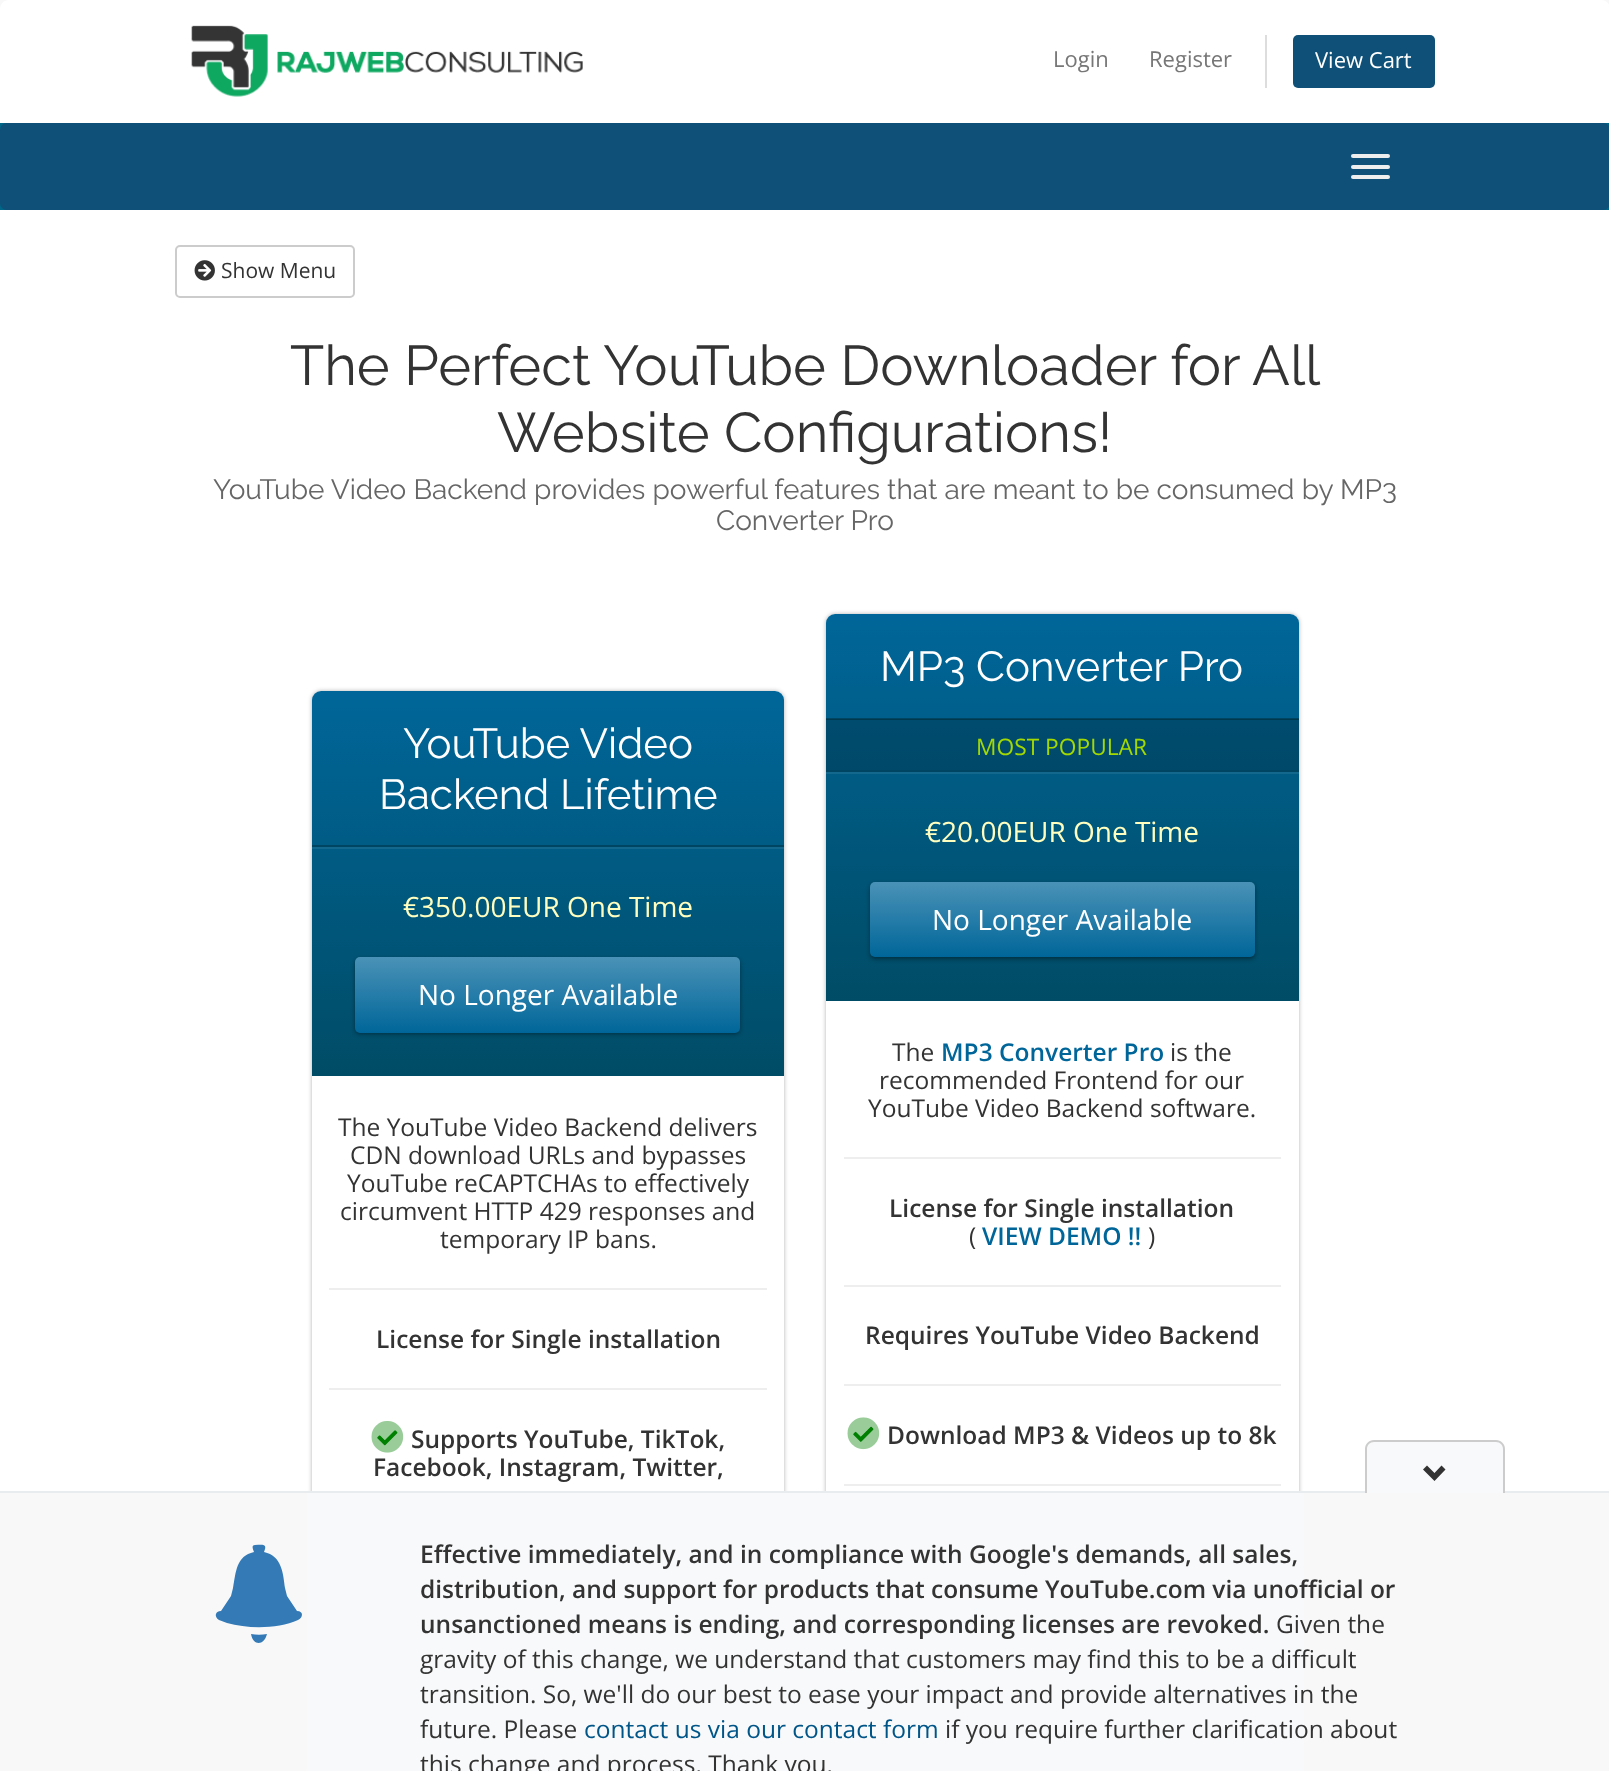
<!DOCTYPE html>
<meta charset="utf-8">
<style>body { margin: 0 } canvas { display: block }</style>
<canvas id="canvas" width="1609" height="1771"></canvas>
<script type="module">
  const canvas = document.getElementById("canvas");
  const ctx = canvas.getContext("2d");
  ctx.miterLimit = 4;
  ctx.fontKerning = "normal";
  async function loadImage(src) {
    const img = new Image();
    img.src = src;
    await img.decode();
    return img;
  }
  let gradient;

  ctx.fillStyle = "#f8f8f8";
  ctx.fillRect(0, 0, 1609, 1771);
  ctx.fillStyle = "#ffffff";
  ctx.beginPath();
  ctx.moveTo(9, 0);
  ctx.lineTo(1601, 0);
  ctx.bezierCurveTo(1606, 0, 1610, 4, 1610, 9);
  ctx.lineTo(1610, 123);
  ctx.lineTo(0, 123);
  ctx.lineTo(0, 9);
  ctx.bezierCurveTo(0, 4, 4, 0, 9, 0);
  ctx.closePath();
  ctx.fill();
  ctx.drawImage(await loadImage("img1.png"), 191, 25, 392, 72);
  ctx.font = "22px Open Sans";
  ctx.fillStyle = "#777777";
  ctx.fillText("Login", 1053, 67);
  ctx.fillText("Register", 1149, 67);
  ctx.fillStyle = "#dddddd";
  ctx.fillRect(1265, 35, 2, 53);
  ctx.fillStyle = "#0e5077";
  ctx.beginPath();
  ctx.roundRect(1293, 35, 142, 53, 5);
  ctx.fill();
  ctx.fillStyle = "#ffffff";
  ctx.fillText("View Cart", 1315, 68);
  ctx.fillStyle = "#006687";
  ctx.fillRect(0, 123, 1609, 87);
  ctx.fillStyle = "#0e5077";
  ctx.beginPath();
  ctx.roundRect(0, 123, 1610, 87, 7);
  ctx.fill();
  ctx.fillStyle = "#eeeeee";
  ctx.beginPath();
  ctx.roundRect(1351, 154, 39, 4, 2);
  ctx.fill();
  ctx.beginPath();
  ctx.roundRect(1351, 165, 39, 4, 2);
  ctx.fill();
  ctx.beginPath();
  ctx.roundRect(1351, 175, 39, 4, 2);
  ctx.fill();
  ctx.fillStyle = "#ffffff";
  ctx.fillRect(0, 210, 1609, 1281);
  ctx.beginPath();
  ctx.roundRect(176, 246, 178, 51, 4);
  ctx.strokeStyle = "#cccccc";
  ctx.lineWidth = 2;
  ctx.stroke();
  ctx.drawImage(await loadImage("img2.png"), 194, 260, 21, 21);
  ctx.font = "21px Open Sans";
  ctx.fillStyle = "#333333";
  ctx.fillText("Show Menu", 221, 278);
  ctx.font = "56px Raleway";
  ctx.fillText("The Perfect YouTube Downloader for All", 290, 385);
  ctx.fillText("Website Configurations!", 497, 452);
  ctx.font = "28px Raleway";
  ctx.fillStyle = "#666666";
  ctx.fillText("YouTube Video Backend provides powerful features that are meant to be consumed by MP3", 213, 499);
  ctx.fillText("Converter Pro", 716, 530);
  ctx.fillStyle = "rgba(0, 0, 0, 0.3)";
  ctx.filter = "blur(2px)";
  ctx.beginPath();
  ctx.roundRect(312, 691, 472, 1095, 9);
  ctx.fill();
  ctx.filter = "none";
  ctx.fillStyle = "#ffffff";
  ctx.beginPath();
  ctx.roundRect(312, 691, 472, 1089, 9);
  ctx.fill();
  gradient = ctx.createLinearGradient(548, 691, 548, 1076);
  gradient.addColorStop(0, "#006699");
  gradient.addColorStop(1, "#004c66");
  ctx.fillStyle = gradient;
  ctx.beginPath();
  ctx.roundRect(312, 691, 472, 385, [9, 9, 0, 0]);
  ctx.fill();
  ctx.fillStyle = "#004662";
  ctx.fillRect(312, 845, 472, 2);
  ctx.font = "42px Raleway";
  ctx.fillStyle = "#ffffff";
  ctx.fillText("YouTube Video", 403, 758);
  ctx.fillText("Backend Lifetime", 379, 809);
  ctx.fillStyle = "#12688d";
  ctx.fillRect(312, 847, 472, 2);
  ctx.font = "28px Open Sans";
  ctx.fillStyle = "#ffffbf";
  ctx.fillText("€350.00EUR One Time", 403, 917);
  ctx.fillStyle = "rgba(0, 0, 0, 0.4)";
  ctx.filter = "blur(2px)";
  ctx.beginPath();
  ctx.roundRect(355, 959, 385, 75, 5);
  ctx.fill();
  ctx.filter = "none";
  gradient = ctx.createLinearGradient(548, 957, 548, 1033);
  gradient.addColorStop(0, "#4a92b7");
  gradient.addColorStop(1, "#006699");
  ctx.fillStyle = gradient;
  ctx.beginPath();
  ctx.roundRect(355, 957, 385, 76, 5);
  ctx.fill();
  ctx.fillStyle = "#ffffff";
  ctx.fillText("No Longer Available", 418, 1005);
  ctx.font = "24.5px Open Sans";
  ctx.fillStyle = "#333333";
  ctx.fillText("The YouTube Video Backend delivers", 338, 1136);
  ctx.fillText("CDN download URLs and bypasses", 350, 1164);
  ctx.fillText("YouTube reCAPTCHAs to effectively", 347, 1192);
  ctx.fillText("circumvent HTTP 429 responses and", 340, 1220);
  ctx.fillText("temporary IP bans.", 440, 1248);
  ctx.fillStyle = "#eeeeee";
  ctx.fillRect(329, 1288, 438, 2);
  ctx.font = "600 24.5px Open Sans";
  ctx.fillStyle = "#333333";
  ctx.fillText("License for Single installation", 376, 1348);
  ctx.fillStyle = "#eeeeee";
  ctx.fillRect(329, 1388, 438, 2);
  ctx.drawImage(await loadImage("img4.png"), 377, 1430, 21, 16);
  ctx.drawImage(await loadImage("img3.png"), 371, 1421, 33, 32);
  ctx.fillStyle = "#333333";
  ctx.fillText("Supports YouTube, TikTok,", 411, 1448);
  ctx.fillText("Facebook, Instagram, Twitter,", 373, 1476);
  ctx.fillStyle = "rgba(0, 0, 0, 0.3)";
  ctx.filter = "blur(2px)";
  ctx.beginPath();
  ctx.roundRect(826, 614, 473, 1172, 9);
  ctx.fill();
  ctx.filter = "none";
  ctx.fillStyle = "#ffffff";
  ctx.beginPath();
  ctx.roundRect(826, 614, 473, 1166, 9);
  ctx.fill();
  gradient = ctx.createLinearGradient(1062, 614, 1062, 1001);
  gradient.addColorStop(0, "#006699");
  gradient.addColorStop(1, "#004c66");
  ctx.fillStyle = gradient;
  ctx.beginPath();
  ctx.roundRect(826, 614, 473, 387, [9, 9, 0, 0]);
  ctx.fill();
  ctx.fillStyle = "#004662";
  ctx.fillRect(826, 718, 473, 2);
  ctx.font = "42px Raleway";
  ctx.fillStyle = "#ffffff";
  ctx.fillText("MP3 Converter Pro", 880, 681);
  ctx.fillStyle = "rgba(0, 0, 0, 0.2)";
  ctx.fillRect(826, 719, 473, 51);
  ctx.fillStyle = "#004662";
  ctx.fillRect(826, 770, 473, 2);
  ctx.font = "22.75px Open Sans";
  ctx.fillStyle = "#a3d900";
  ctx.fillText("MOST POPULAR", 976, 755);
  ctx.fillStyle = "#12688d";
  ctx.fillRect(826, 772, 473, 2);
  ctx.font = "28px Open Sans";
  ctx.fillStyle = "#ffffbf";
  ctx.fillText("€20.00EUR One Time", 925, 842);
  ctx.fillStyle = "rgba(0, 0, 0, 0.4)";
  ctx.filter = "blur(2px)";
  ctx.beginPath();
  ctx.roundRect(870, 884, 385, 75, 5);
  ctx.fill();
  ctx.filter = "none";
  gradient = ctx.createLinearGradient(1062, 882, 1062, 957);
  gradient.addColorStop(0, "#4a92b7");
  gradient.addColorStop(1, "#006699");
  ctx.fillStyle = gradient;
  ctx.beginPath();
  ctx.roundRect(870, 882, 385, 75, 5);
  ctx.fill();
  ctx.fillStyle = "#ffffff";
  ctx.fillText("No Longer Available", 932, 930);
  ctx.font = "24.5px Open Sans";
  ctx.fillStyle = "#333333";
  ctx.fillText("The", 892, 1061);
  ctx.font = "600 24.5px Open Sans";
  ctx.fillStyle = "#006699";
  ctx.fillText("MP3 Converter Pro", 941, 1061);
  ctx.font = "24.5px Open Sans";
  ctx.fillStyle = "#333333";
  ctx.fillText("is the", 1170, 1061);
  ctx.fillText("recommended Frontend for our", 879, 1089);
  ctx.fillText("YouTube Video Backend software.", 868, 1117);
  ctx.fillStyle = "#eeeeee";
  ctx.fillRect(844, 1157, 437, 2);
  ctx.font = "600 24.5px Open Sans";
  ctx.fillStyle = "#333333";
  ctx.fillText("License for Single installation", 889, 1217);
  ctx.font = "24.5px Open Sans";
  ctx.fillText("(", 969, 1245);
  ctx.font = "600 24.5px Open Sans";
  ctx.fillStyle = "#006699";
  ctx.fillText("VIEW DEMO !!", 982, 1245);
  ctx.font = "24.5px Open Sans";
  ctx.fillStyle = "#333333";
  ctx.fillText(")", 1148, 1245);
  ctx.fillStyle = "#eeeeee";
  ctx.fillRect(844, 1285, 437, 2);
  ctx.font = "600 24.5px Open Sans";
  ctx.fillStyle = "#333333";
  ctx.fillText("Requires YouTube Video Backend", 865, 1344);
  ctx.fillStyle = "#eeeeee";
  ctx.fillRect(844, 1384, 437, 2);
  ctx.drawImage(await loadImage("img6.png"), 853, 1426, 21, 16);
  ctx.drawImage(await loadImage("img5.png"), 847, 1417, 33, 33);
  ctx.fillStyle = "#333333";
  ctx.fillText("Download MP3 & Videos up to 8k", 887, 1444);
  ctx.fillStyle = "#eeeeee";
  ctx.fillRect(844, 1484, 437, 2);
  ctx.fillStyle = "#f8f9fa";
  ctx.fillRect(307, 1493, 997, 278);
  ctx.fillStyle = "#e9ecef";
  ctx.fillRect(0, 1491, 1609, 2);
  ctx.fillStyle = "#f8f9fa";
  ctx.beginPath();
  ctx.roundRect(1365, 1440, 140, 53, [9, 9, 0, 0]);
  ctx.fill();
  ctx.fillStyle = "#cccccc";
  ctx.beginPath();
  ctx.moveTo(1374, 1440);
  ctx.lineTo(1496, 1440);
  ctx.bezierCurveTo(1501, 1440, 1505, 1444, 1505, 1449);
  ctx.lineTo(1505, 1493);
  ctx.lineTo(1365, 1493);
  ctx.lineTo(1365, 1449);
  ctx.bezierCurveTo(1365, 1444, 1369, 1440, 1374, 1440);
  ctx.closePath();
  ctx.moveTo(1374, 1442);
  ctx.lineTo(1496, 1442);
  ctx.bezierCurveTo(1500, 1442, 1503, 1445, 1503, 1449);
  ctx.lineTo(1503, 1493);
  ctx.lineTo(1367, 1493);
  ctx.lineTo(1367, 1449);
  ctx.bezierCurveTo(1367, 1445, 1370, 1442, 1374, 1442);
  ctx.closePath();
  ctx.fill("evenodd");
  ctx.fillStyle = "#333333";
  ctx.beginPath();
  ctx.moveTo(1445.5, 1469.5);
  ctx.lineTo(1434.5, 1481);
  ctx.lineTo(1423, 1469.5);
  ctx.lineTo(1427, 1465.5);
  ctx.lineTo(1434.5, 1473);
  ctx.lineTo(1441.5, 1465.5);
  ctx.closePath();
  ctx.fill();
  ctx.fillStyle = "#337ab7";
  ctx.beginPath();
  ctx.moveTo(255, 1545);
  ctx.bezierCurveTo(262, 1545, 268, 1543, 264, 1552);
  ctx.bezierCurveTo(282, 1556, 283, 1573, 285, 1588);
  ctx.lineTo(287, 1596);
  ctx.lineTo(297, 1611);
  ctx.bezierCurveTo(304, 1611, 303, 1618, 298, 1620);
  ctx.bezierCurveTo(278, 1629, 248, 1629, 227, 1623);
  ctx.lineTo(219, 1620);
  ctx.bezierCurveTo(214, 1617, 215, 1611, 221, 1611);
  ctx.lineTo(231, 1596);
  ctx.lineTo(233, 1588);
  ctx.bezierCurveTo(236, 1572, 236, 1556, 254, 1552);
  ctx.bezierCurveTo(253, 1549, 251, 1545, 255, 1545);
  ctx.closePath();
  ctx.moveTo(251, 1634);
  ctx.bezierCurveTo(256, 1635, 262, 1635, 267, 1634);
  ctx.bezierCurveTo(264, 1646, 253, 1646, 251, 1634);
  ctx.closePath();
  ctx.fill();
  ctx.fillStyle = "#333333";
  ctx.fillText("Effective immediately, and in compliance with Google's demands, all sales,", 420, 1563);
  ctx.fillText("distribution, and support for products that consume YouTube.com via unofficial or", 420, 1598);
  ctx.fillText("unsanctioned means is ending, and corresponding licenses are revoked.", 420, 1633);
  ctx.font = "24.5px Open Sans";
  ctx.fillText("Given the", 1276, 1633);
  ctx.fillText("gravity of this change, we understand that customers may find this to be a difficult", 420, 1668);
  ctx.fillText("transition. So, we'll do our best to ease your impact and provide alternatives in the", 420, 1703);
  ctx.fillText("future. Please", 420, 1738);
  ctx.fillStyle = "#005588";
  ctx.fillText("contact us via our contact form", 584, 1738);
  ctx.fillStyle = "#333333";
  ctx.fillText("if you require further clarification about", 945, 1738);
  ctx.fillText("this change and process. Thank you.", 420, 1773);
</script>
